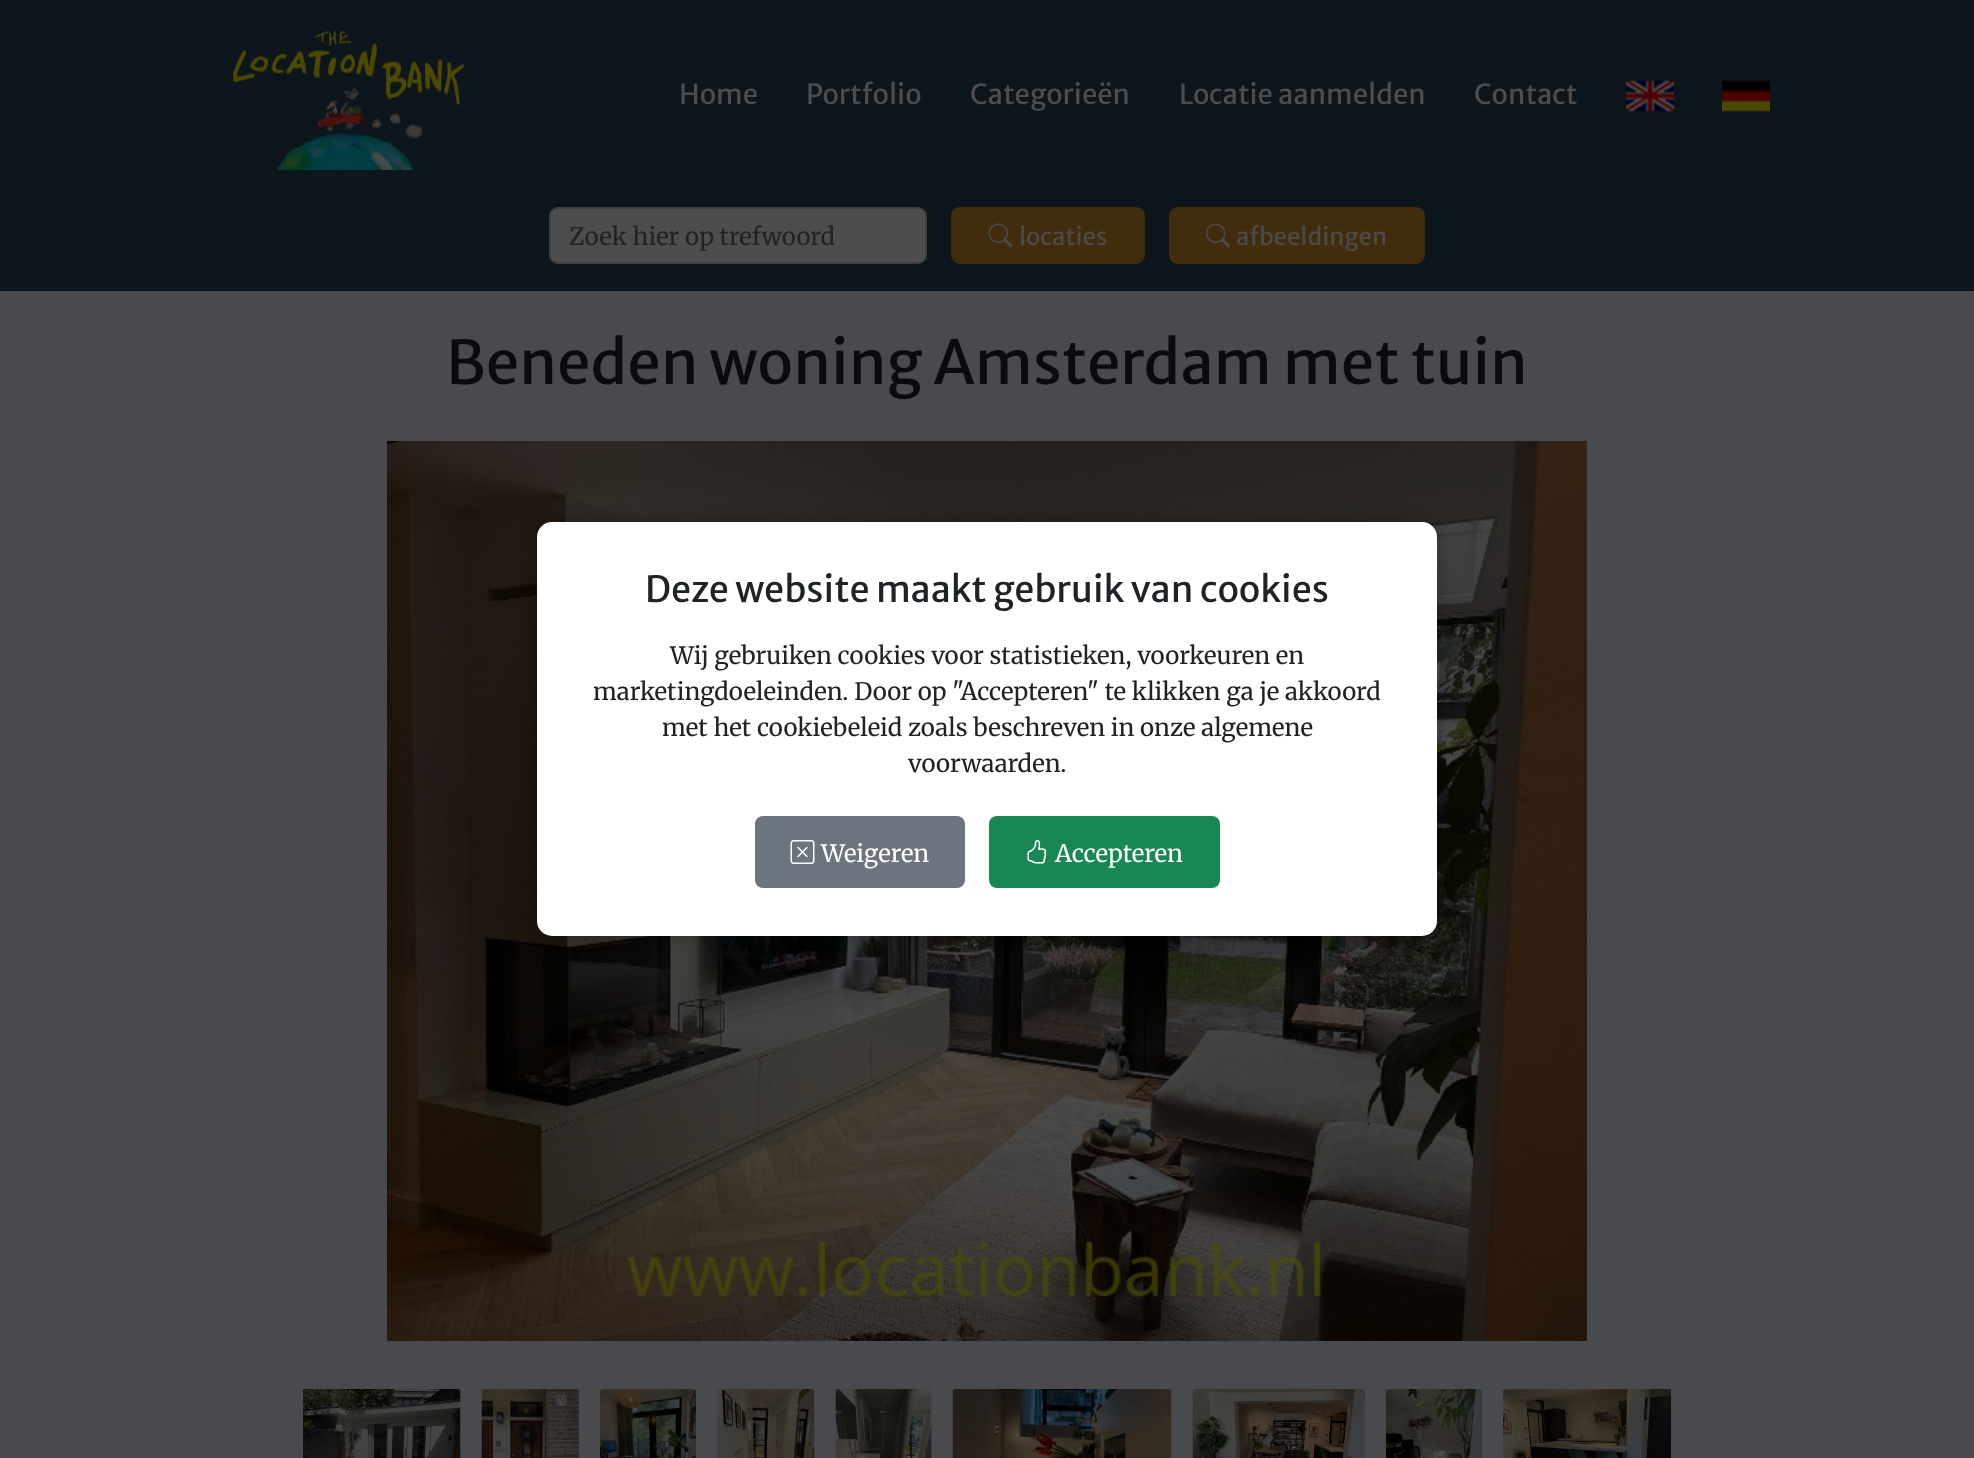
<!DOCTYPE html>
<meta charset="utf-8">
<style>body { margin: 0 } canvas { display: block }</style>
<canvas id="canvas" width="1974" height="1458"></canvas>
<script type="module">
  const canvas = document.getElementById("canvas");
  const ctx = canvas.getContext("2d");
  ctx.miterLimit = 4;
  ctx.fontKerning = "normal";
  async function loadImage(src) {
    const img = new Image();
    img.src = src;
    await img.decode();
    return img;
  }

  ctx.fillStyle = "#484a4d";
  ctx.fillRect(0, 0, 1974, 1458);
  ctx.fillStyle = "#0d151d";
  ctx.fillRect(0, 0, 1974, 291);
  ctx.drawImage(await loadImage("img1.png"), 233, 30, 232, 140);
  ctx.font = "27.5px Merriweather Sans";
  ctx.fillStyle = "#4d4d4d";
  ctx.fillText("Home", 679, 104);
  ctx.fillText("Portfolio", 806, 104);
  ctx.fillText("Categorieën", 970, 104);
  ctx.fillText("Locatie aanmelden", 1179, 104);
  ctx.fillText("Contact", 1474, 104);
  ctx.drawImage(await loadImage("img2.png"), 1626, 80, 48, 32);
  ctx.drawImage(await loadImage("img3.png"), 1722, 80, 48, 32);
  ctx.beginPath();
  ctx.roundRect(550, 208, 376, 55, 8);
  ctx.fill();
  ctx.strokeStyle = "#3e4041";
  ctx.lineWidth = 2;
  ctx.stroke();
  ctx.font = "24px Merriweather";
  ctx.fillStyle = "#202326";
  ctx.fillText("Zoek hier op trefwoord", 569, 245);
  ctx.fillStyle = "#412d0d";
  ctx.beginPath();
  ctx.roundRect(952, 208, 192, 55, 8);
  ctx.fill();
  ctx.strokeStyle = "#412d0d";
  ctx.stroke();
  ctx.drawImage(await loadImage("img4.png"), 988, 223, 25, 25);
  ctx.font = "24px Merriweather Sans";
  ctx.fillStyle = "#4d4b47";
  ctx.fillText("locaties", 1019, 245);
  ctx.fillStyle = "#412d0d";
  ctx.beginPath();
  ctx.roundRect(1170, 208, 254, 55, 8);
  ctx.fill();
  ctx.stroke();
  ctx.drawImage(await loadImage("img5.png"), 1206, 223, 24, 25);
  ctx.fillStyle = "#4d4b47";
  ctx.fillText("afbeeldingen", 1236, 245);
  ctx.font = "60px Merriweather Sans";
  ctx.fillStyle = "#0a0b0c";
  ctx.fillText("Beneden woning Amsterdam met tuin", 446, 384);
  ctx.drawImage(await loadImage("img6.png"), 387, 441, 1200, 900);
  ctx.drawImage(await loadImage("img7.png"), 303, 1389, 158, 69);
  ctx.drawImage(await loadImage("img8.png"), 481, 1389, 98, 69);
  ctx.drawImage(await loadImage("img9.png"), 600, 1389, 96, 69);
  ctx.drawImage(await loadImage("img10.png"), 717, 1389, 98, 69);
  ctx.drawImage(await loadImage("img11.png"), 835, 1389, 97, 69);
  ctx.drawImage(await loadImage("img12.png"), 952, 1389, 220, 69);
  ctx.drawImage(await loadImage("img13.png"), 1192, 1389, 173, 69);
  ctx.drawImage(await loadImage("img14.png"), 1386, 1389, 96, 69);
  ctx.drawImage(await loadImage("img15.png"), 1503, 1389, 168, 69);
  ctx.fillStyle = "rgba(0, 0, 0, 0.3)";
  ctx.filter = "blur(7.5px)";
  ctx.beginPath();
  ctx.roundRect(537, 522, 900, 414, 15);
  ctx.fill();
  ctx.filter = "none";
  ctx.fillStyle = "#ffffff";
  ctx.beginPath();
  ctx.roundRect(537, 522, 900, 414, 15);
  ctx.fill();
  ctx.font = "36px Merriweather Sans";
  ctx.fillStyle = "#202326";
  ctx.fillText("Deze website maakt gebruik van cookies", 645, 602);
  ctx.font = "24px Merriweather";
  ctx.fillText("Wij gebruiken cookies voor statistieken, voorkeuren en", 670, 664);
  ctx.fillText("marketingdoeleinden. Door op \"Accepteren\" te klikken ga je akkoord", 593, 700);
  ctx.fillText("met het cookiebeleid zoals beschreven in onze algemene", 662, 736);
  ctx.fillText("voorwaarden.", 908, 772);
  ctx.fillStyle = "#6c757d";
  ctx.beginPath();
  ctx.roundRect(755, 816, 210, 72, 8);
  ctx.fill();
  ctx.drawImage(await loadImage("img16.png"), 790, 840, 25, 24);
  ctx.fillStyle = "#ffffff";
  ctx.fillText("Weigeren", 821, 862);
  ctx.fillStyle = "#198754";
  ctx.beginPath();
  ctx.roundRect(989, 816, 231, 72, 8);
  ctx.fill();
  ctx.drawImage(await loadImage("img17.png"), 1027, 840, 20, 24);
  ctx.fillStyle = "#ffffff";
  ctx.fillText("Accepteren", 1055, 862);
</script>
